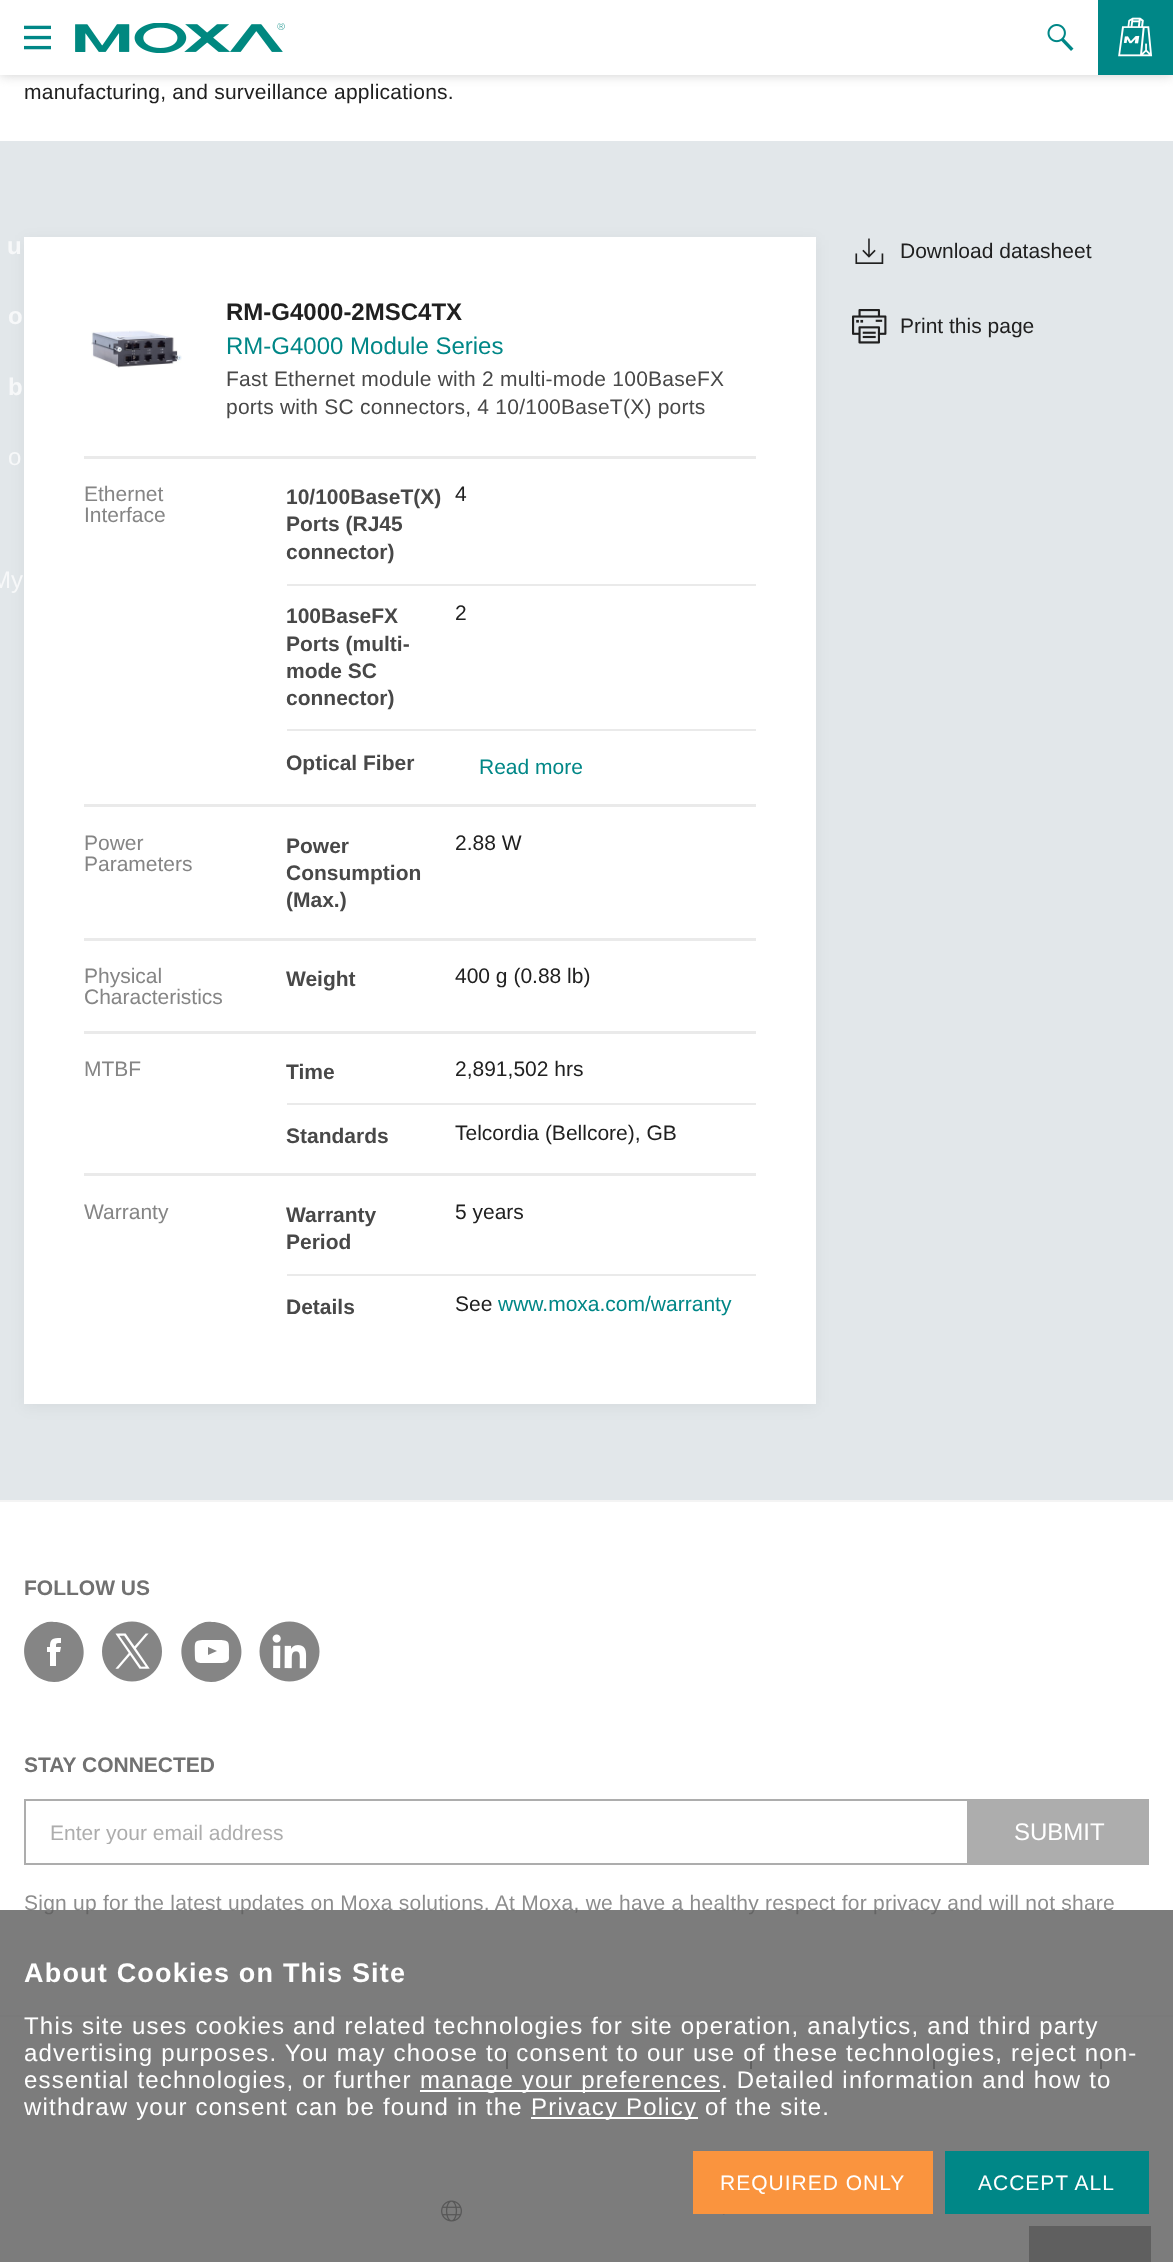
<!DOCTYPE html>
<meta charset="utf-8">
<style>body { margin: 0 } canvas { display: block }</style>
<canvas id="canvas" width="1173" height="2262"></canvas>
<script type="module">
  const canvas = document.getElementById("canvas");
  const ctx = canvas.getContext("2d");
  ctx.miterLimit = 4;
  ctx.fontKerning = "normal";
  async function loadImage(src) {
    const img = new Image();
    img.src = src;
    await img.decode();
    return img;
  }

  ctx.fillStyle = "#ffffff";
  ctx.fillRect(0, 0, 1173, 2262);
  ctx.save();
  ctx.beginPath();
  ctx.rect(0, 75, 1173, 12);
  ctx.clip();
  ctx.fillStyle = "#cecece";
  ctx.filter = "blur(6px)";
  ctx.beginPath();
  ctx.rect(0, 0, 1173, 75);
  ctx.fill();
  ctx.filter = "none";
  ctx.restore();
  ctx.drawImage(await loadImage("img1.png"), 24, 25, 27, 25);
  ctx.drawImage(await loadImage("img2.png"), 75, 23, 210, 30);
  ctx.drawImage(await loadImage("img3.png"), 1047, 24, 27, 27);
  ctx.fillStyle = "#008787";
  ctx.fillRect(1098, 0, 75, 75);
  ctx.drawImage(await loadImage("img4.png"), 1118, 17, 35, 40);
  ctx.fillStyle = "#e2e7ea";
  ctx.fillRect(0, 141, 1173, 1359);
  ctx.fillStyle = "rgba(0, 0, 0, 0.05)";
  ctx.filter = "blur(7.5px)";
  ctx.beginPath();
  ctx.rect(24, 240, 792, 1167);
  ctx.fill();
  ctx.filter = "none";
  ctx.font = "bold 24px Liberation Sans";
  ctx.fillStyle = "#f7f8f9";
  ctx.fillText("u", 7, 254);
  ctx.fillText("o", 8, 324);
  ctx.fillText("b", 8, 395);
  ctx.font = "24px Liberation Sans";
  ctx.fillText("o", 8, 465);
  ctx.fillText("My", -9, 588);
  ctx.letterSpacing = "0.24px";
  ctx.font = "21px Liberation Sans";
  ctx.fillStyle = "#202020";
  ctx.fillText("manufacturing, and surveillance applications.", 24, 99);
  ctx.drawImage(await loadImage("img5.png"), 855, 238, 29, 26);
  ctx.letterSpacing = "0px";
  ctx.fillText("Download datasheet", 900, 258);
  ctx.drawImage(await loadImage("img6.png"), 852, 309, 35, 35);
  ctx.fillText("Print this page", 900, 333);
  ctx.fillStyle = "#ffffff";
  ctx.fillRect(24, 237, 792, 1167);
  ctx.drawImage(await loadImage("img7.png"), 91, 330, 91, 38);
  ctx.font = "bold 24px Liberation Sans";
  ctx.fillStyle = "#202020";
  ctx.fillText("RM-G4000-2MSC4TX", 226, 320);
  ctx.font = "24px Liberation Sans";
  ctx.fillStyle = "#008787";
  ctx.fillText("RM-G4000 Module Series", 226, 354);
  ctx.letterSpacing = "0.24px";
  ctx.font = "21px Liberation Sans";
  ctx.fillStyle = "#484848";
  ctx.fillText("Fast Ethernet module with 2 multi-mode 100BaseFX", 226, 386);
  ctx.fillText("ports with SC connectors, 4 10/100BaseT(X) ports", 226, 414);
  ctx.fillStyle = "#eaeaea";
  ctx.fillRect(84, 456, 672, 3);
  ctx.letterSpacing = "0px";
  ctx.fillStyle = "#858585";
  ctx.fillText("Ethernet", 84, 501);
  ctx.fillText("Interface", 84, 522);
  ctx.fillStyle = "#eaeaea";
  ctx.fillRect(287, 584, 469, 2);
  ctx.font = "bold 21px Liberation Sans";
  ctx.fillStyle = "#484848";
  ctx.fillText("10/100BaseT(X)", 286, 504);
  ctx.fillText("Ports (RJ45", 286, 531);
  ctx.fillText("connector)", 286, 559);
  ctx.font = "21px Liberation Sans";
  ctx.fillStyle = "#202020";
  ctx.fillText("4", 455, 501);
  ctx.fillStyle = "#eaeaea";
  ctx.fillRect(287, 729, 469, 2);
  ctx.font = "bold 21px Liberation Sans";
  ctx.fillStyle = "#484848";
  ctx.fillText("100BaseFX", 286, 623);
  ctx.fillText("Ports (multi-", 286, 651);
  ctx.fillText("mode SC", 286, 678);
  ctx.fillText("connector)", 286, 705);
  ctx.font = "21px Liberation Sans";
  ctx.fillStyle = "#202020";
  ctx.fillText("2", 455, 620);
  ctx.font = "bold 21px Liberation Sans";
  ctx.fillStyle = "#484848";
  ctx.fillText("Optical Fiber", 286, 770);
  ctx.font = "21px Liberation Sans";
  ctx.fillStyle = "#008787";
  ctx.fillText("Read more", 479, 774);
  ctx.fillStyle = "#eaeaea";
  ctx.fillRect(84, 804, 672, 3);
  ctx.fillStyle = "#858585";
  ctx.fillText("Power", 84, 850);
  ctx.fillText("Parameters", 84, 871);
  ctx.font = "bold 21px Liberation Sans";
  ctx.fillStyle = "#484848";
  ctx.fillText("Power", 286, 853);
  ctx.fillText("Consumption", 286, 880);
  ctx.fillText("(Max.)", 286, 907);
  ctx.font = "21px Liberation Sans";
  ctx.fillStyle = "#202020";
  ctx.fillText("2.88 W", 455, 850);
  ctx.fillStyle = "#eaeaea";
  ctx.fillRect(84, 938, 672, 3);
  ctx.fillStyle = "#858585";
  ctx.fillText("Physical", 84, 983);
  ctx.fillText("Characteristics", 84, 1004);
  ctx.font = "bold 21px Liberation Sans";
  ctx.fillStyle = "#484848";
  ctx.fillText("Weight", 286, 986);
  ctx.font = "21px Liberation Sans";
  ctx.fillStyle = "#202020";
  ctx.fillText("400 g (0.88 lb)", 455, 983);
  ctx.fillStyle = "#eaeaea";
  ctx.fillRect(84, 1031, 672, 3);
  ctx.fillStyle = "#858585";
  ctx.fillText("MTBF", 84, 1076);
  ctx.fillStyle = "#eaeaea";
  ctx.fillRect(287, 1103, 469, 2);
  ctx.font = "bold 21px Liberation Sans";
  ctx.fillStyle = "#484848";
  ctx.fillText("Time", 286, 1079);
  ctx.font = "21px Liberation Sans";
  ctx.fillStyle = "#202020";
  ctx.fillText("2,891,502 hrs", 455, 1076);
  ctx.font = "bold 21px Liberation Sans";
  ctx.fillStyle = "#484848";
  ctx.fillText("Standards", 286, 1143);
  ctx.font = "21px Liberation Sans";
  ctx.fillStyle = "#202020";
  ctx.fillText("Telcordia (Bellcore), GB", 455, 1140);
  ctx.fillStyle = "#eaeaea";
  ctx.fillRect(84, 1173, 672, 3);
  ctx.fillStyle = "#858585";
  ctx.fillText("Warranty", 84, 1219);
  ctx.fillStyle = "#eaeaea";
  ctx.fillRect(287, 1274, 469, 2);
  ctx.font = "bold 21px Liberation Sans";
  ctx.fillStyle = "#484848";
  ctx.fillText("Warranty", 286, 1222);
  ctx.fillText("Period", 286, 1249);
  ctx.font = "21px Liberation Sans";
  ctx.fillStyle = "#202020";
  ctx.fillText("5 years", 455, 1219);
  ctx.font = "bold 21px Liberation Sans";
  ctx.fillStyle = "#484848";
  ctx.fillText("Details", 286, 1314);
  ctx.font = "21px Liberation Sans";
  ctx.fillStyle = "#202020";
  ctx.fillText("See", 455, 1311);
  ctx.fillStyle = "#008787";
  ctx.fillText("www.moxa.com/warranty", 498, 1311);
  ctx.fillStyle = "#f4f4f4";
  ctx.fillRect(0, 1500, 1173, 2);
  ctx.font = "bold 21px Liberation Sans";
  ctx.fillStyle = "#717171";
  ctx.fillText("FOLLOW US", 24, 1595);
  ctx.fillStyle = "#858585";
  ctx.beginPath();
  ctx.moveTo(54, 1622);
  ctx.bezierCurveTo(48, 1621, 42, 1623, 37, 1627);
  ctx.bezierCurveTo(13, 1643, 25, 1681, 54, 1682);
  ctx.bezierCurveTo(60, 1682, 66, 1680, 71, 1676);
  ctx.bezierCurveTo(95, 1660, 83, 1622, 54, 1622);
  ctx.closePath();
  ctx.moveTo(56, 1666);
  ctx.lineTo(50, 1666);
  ctx.lineTo(50, 1652);
  ctx.lineTo(47, 1652);
  ctx.lineTo(47, 1647);
  ctx.lineTo(50, 1647);
  ctx.bezierCurveTo(50, 1639, 52, 1638, 61, 1638);
  ctx.lineTo(61, 1643);
  ctx.bezierCurveTo(56, 1643, 56, 1643, 56, 1647);
  ctx.lineTo(61, 1647);
  ctx.lineTo(60, 1652);
  ctx.lineTo(56, 1652);
  ctx.closePath();
  ctx.fill();
  ctx.drawImage(await loadImage("img8.png"), 102, 1621, 60, 61);
  ctx.beginPath();
  ctx.moveTo(208, 1655);
  ctx.lineTo(217, 1651);
  ctx.lineTo(208, 1647);
  ctx.closePath();
  ctx.moveTo(229, 1658);
  ctx.bezierCurveTo(229, 1639, 231, 1640, 212, 1640);
  ctx.bezierCurveTo(192, 1640, 195, 1639, 195, 1658);
  ctx.bezierCurveTo(195, 1663, 200, 1663, 203, 1663);
  ctx.lineTo(219, 1663);
  ctx.bezierCurveTo(223, 1663, 229, 1663, 229, 1658);
  ctx.closePath();
  ctx.moveTo(212, 1622);
  ctx.bezierCurveTo(241, 1622, 253, 1660, 228, 1676);
  ctx.bezierCurveTo(223, 1680, 217, 1682, 211, 1682);
  ctx.bezierCurveTo(182, 1681, 170, 1643, 195, 1627);
  ctx.bezierCurveTo(200, 1623, 206, 1621, 212, 1622);
  ctx.closePath();
  ctx.fill();
  ctx.drawImage(await loadImage("img9.png"), 259, 1621, 61, 61);
  ctx.fillStyle = "#717171";
  ctx.fillText("STAY CONNECTED", 24, 1772);
  ctx.strokeStyle = "#adadad";
  ctx.lineWidth = 2;
  ctx.strokeRect(25, 1800, 943, 64);
  ctx.save();
  ctx.beginPath();
  ctx.rect(50, 1820, 894, 24);
  ctx.clip();
  ctx.font = "21px Liberation Sans";
  ctx.fillStyle = "#adadad";
  ctx.fillText("Enter your email address", 50, 1840);
  ctx.restore();
  ctx.fillStyle = "#adadad";
  ctx.fillRect(969, 1799, 180, 66);
  ctx.font = "24px Liberation Sans";
  ctx.fillStyle = "#ffffff";
  ctx.fillText("SUBMIT", 1014, 1840);
  ctx.letterSpacing = "0.24px";
  ctx.font = "21px Liberation Sans";
  ctx.fillStyle = "#8d8d8d";
  ctx.fillText("Sign up for the latest updates on Moxa solutions. At Moxa, we have a healthy respect for privacy and will not share", 24, 1910);
  ctx.fillStyle = "#f4f4f4";
  ctx.fillRect(0, 2015, 1173, 2);
  ctx.fillStyle = "#717171";
  ctx.fillRect(506, 2052, 2, 17);
  ctx.fillRect(750, 2052, 2, 17);
  ctx.fillRect(933, 2052, 2, 17);
  ctx.fillRect(1100, 2052, 2, 17);
  ctx.drawImage(await loadImage("img10.png"), 441, 2200, 21, 22);
  ctx.drawImage(await loadImage("img11.png"), 722, 2214, 3, 1);
  ctx.fillStyle = "#6d6d6d";
  ctx.fillRect(1029, 2226, 122, 36);
  ctx.fillStyle = "rgba(91, 91, 91, 0.8)";
  ctx.fillRect(0, 1910, 1173, 352);
  ctx.letterSpacing = "1.2px";
  ctx.font = "bold 27px Liberation Sans";
  ctx.fillStyle = "#ffffff";
  ctx.fillText("About Cookies on This Site", 24, 1982);
  ctx.font = "24px Liberation Sans";
  ctx.fillText("This site uses cookies and related technologies for site operation, analytics, and third party", 24, 2034);
  ctx.fillText("advertising purposes. You may choose to consent to our use of these technologies, reject non-", 24, 2061);
  ctx.fillText("essential technologies, or further", 24, 2088);
  ctx.fillRect(420, 2090, 300, 2);
  ctx.fillText("manage your preferences. Detailed information and how to", 420, 2088);
  ctx.fillText("withdraw your consent can be found in the", 24, 2115);
  ctx.fillRect(531, 2117, 167, 2);
  ctx.fillText("Privacy Policy of the site.", 531, 2115);
  ctx.fillStyle = "#fa943e";
  ctx.fillRect(693, 2151, 240, 63);
  ctx.letterSpacing = "1px";
  ctx.font = "21px Liberation Sans";
  ctx.fillStyle = "#ffffff";
  ctx.fillText("REQUIRED ONLY", 720, 2190);
  ctx.fillStyle = "#008787";
  ctx.fillRect(945, 2151, 204, 63);
  ctx.fillStyle = "#ffffff";
  ctx.fillText("ACCEPT ALL", 978, 2190);
</script>
